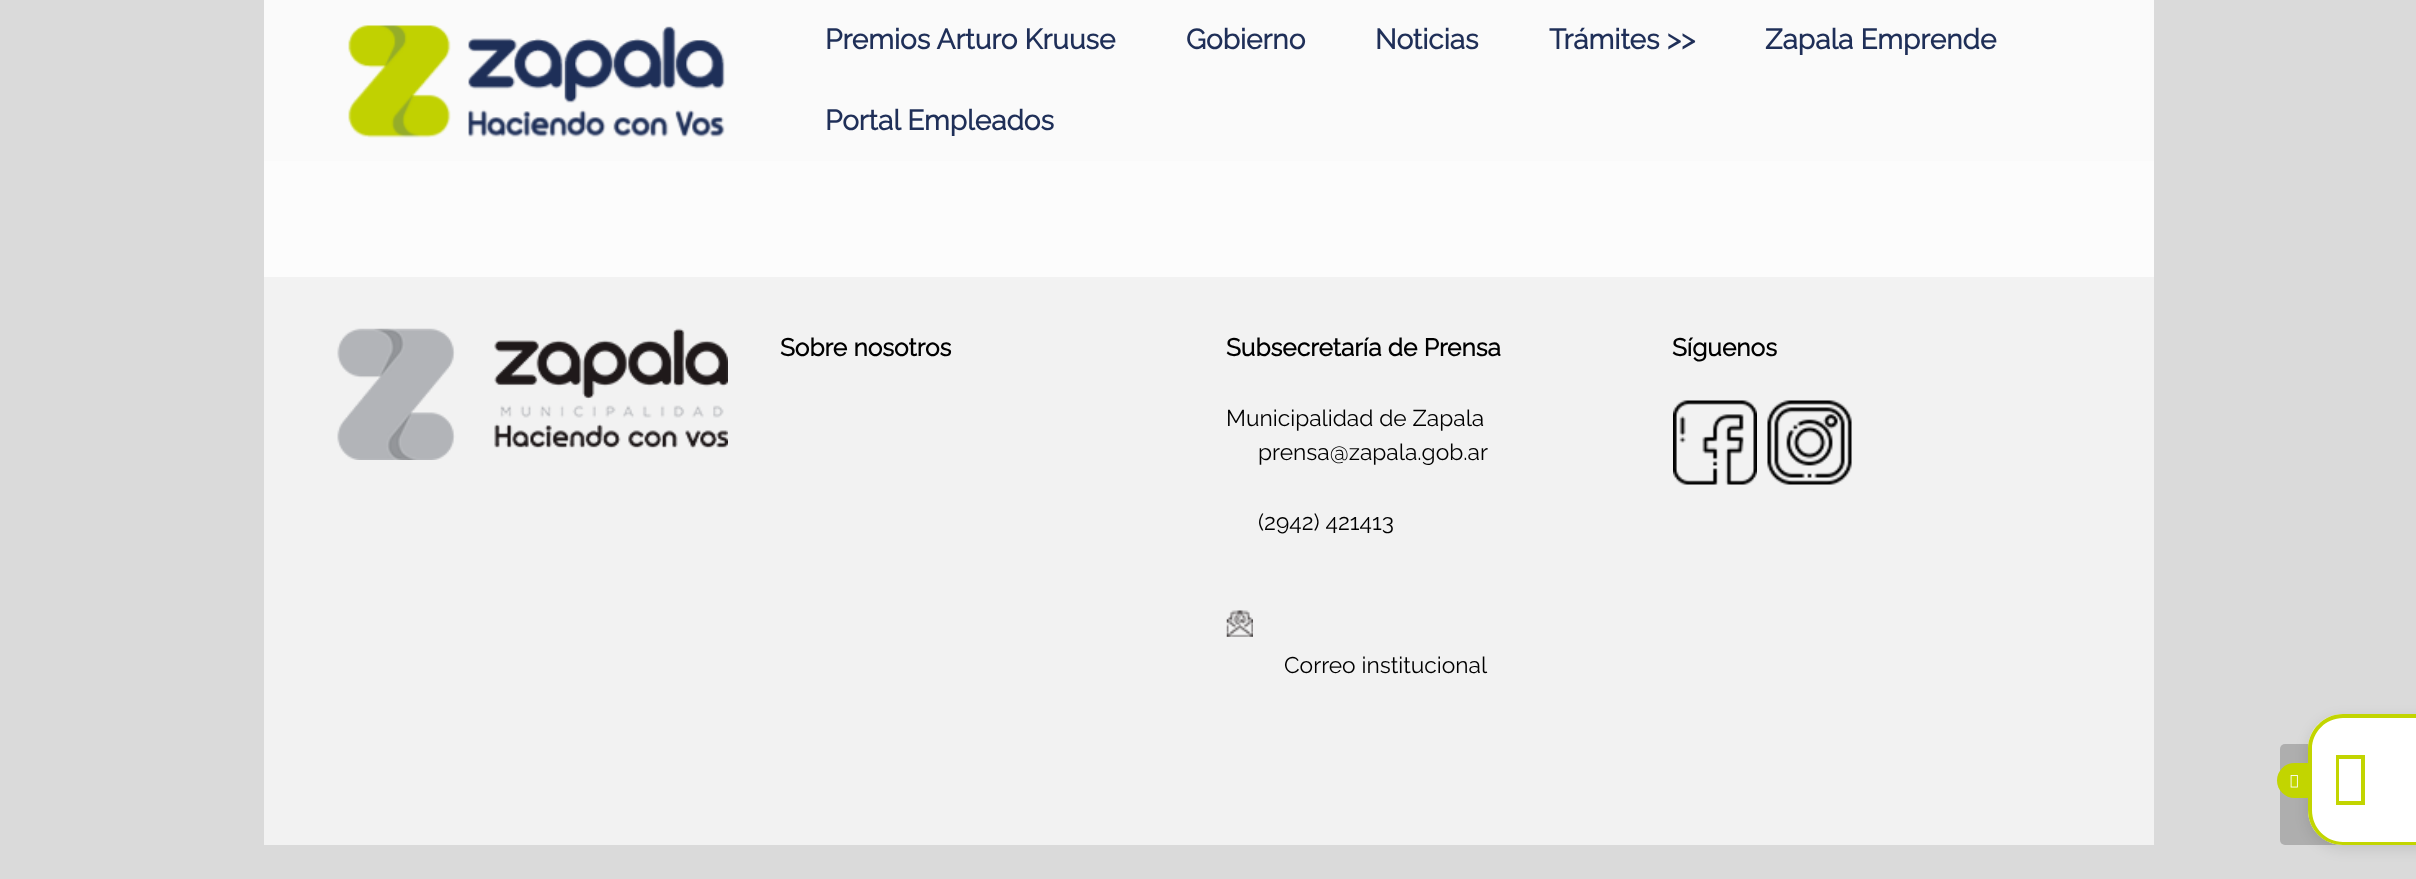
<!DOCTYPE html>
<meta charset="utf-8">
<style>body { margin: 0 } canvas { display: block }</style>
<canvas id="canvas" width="2416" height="879"></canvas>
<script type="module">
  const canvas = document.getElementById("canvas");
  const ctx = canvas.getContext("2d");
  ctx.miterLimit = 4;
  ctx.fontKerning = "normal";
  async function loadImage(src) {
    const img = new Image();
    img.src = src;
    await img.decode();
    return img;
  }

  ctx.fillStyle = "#dadada";
  ctx.fillRect(0, 0, 2416, 879);
  ctx.fillStyle = "#fafafa";
  ctx.fillRect(264, 0, 1890, 161);
  ctx.drawImage(await loadImage("img1.png"), 348, 25, 377, 113);
  ctx.font = "bold 28px Raleway";
  ctx.fillStyle = "#1f2f58";
  ctx.fillText("Premios Arturo Kruuse", 825, 49);
  ctx.fillText("Gobierno", 1186, 49);
  ctx.fillText("Noticias", 1375, 49);
  ctx.fillText("Trámites >>", 1549, 49);
  ctx.fillText("Zapala Emprende", 1765, 49);
  ctx.fillText("Portal Empleados", 825, 130);
  ctx.fillStyle = "#fcfcfc";
  ctx.fillRect(264, 161, 1890, 116);
  ctx.fillStyle = "#f2f2f2";
  ctx.fillRect(264, 277, 1890, 568);
  ctx.drawImage(await loadImage("img2.png"), 337, 328, 391, 132);
  ctx.font = "bold 24.5px Raleway";
  ctx.fillStyle = "#000000";
  ctx.fillText("Sobre nosotros", 780, 356);
  ctx.fillText("Subsecretaría de Prensa", 1226, 356);
  ctx.font = "22.75px Raleway";
  ctx.fillText("Municipalidad de Zapala", 1226, 426);
  ctx.fillText("prensa@zapala.gob.ar", 1258, 460);
  ctx.fillText("(2942) 421413", 1258, 530);
  ctx.drawImage(await loadImage("img3.png"), 1226, 610, 27, 27);
  ctx.fillText("Correo institucional", 1284, 673);
  ctx.font = "bold 24.5px Raleway";
  ctx.fillText("Síguenos", 1672, 356);
  ctx.drawImage(await loadImage("img4.png"), 1673, 400, 84, 85);
  ctx.drawImage(await loadImage("img5.png"), 1767, 400, 85, 85);
  ctx.fillStyle = "#aeaeae";
  ctx.beginPath();
  ctx.roundRect(2280, 744, 102, 101, 5);
  ctx.fill();
  ctx.fillStyle = "rgba(0, 0, 0, 0.1)";
  ctx.filter = "blur(7px)";
  ctx.beginPath();
  ctx.roundRect(2308, 718, 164, 131, 35);
  ctx.fill();
  ctx.filter = "none";
  ctx.fillStyle = "#ffffff";
  ctx.beginPath();
  ctx.moveTo(2343, 714);
  ctx.lineTo(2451, 714);
  ctx.lineTo(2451, 845);
  ctx.lineTo(2343, 845);
  ctx.bezierCurveTo(2323.5, 845, 2308, 829.5, 2308, 810);
  ctx.lineTo(2308, 749);
  ctx.bezierCurveTo(2308, 729.5, 2323.5, 714, 2343, 714);
  ctx.closePath();
  ctx.fill();
  ctx.fillStyle = "#c2d500";
  ctx.beginPath();
  ctx.moveTo(2343, 714);
  ctx.lineTo(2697, 714);
  ctx.lineTo(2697, 845);
  ctx.lineTo(2343, 845);
  ctx.bezierCurveTo(2324, 845, 2308, 830, 2308, 810);
  ctx.lineTo(2308, 749);
  ctx.bezierCurveTo(2308, 730, 2324, 714, 2343, 714);
  ctx.closePath();
  ctx.moveTo(2343, 718);
  ctx.lineTo(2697, 718);
  ctx.lineTo(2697, 842);
  ctx.lineTo(2343, 842);
  ctx.bezierCurveTo(2326, 842, 2312, 828, 2312, 810);
  ctx.lineTo(2312, 749);
  ctx.bezierCurveTo(2312, 732, 2326, 718, 2343, 718);
  ctx.closePath();
  ctx.fill("evenodd");
  ctx.beginPath();
  ctx.roundRect(2277, 763, 35, 35, [17.5, 5, 5, 17.5]);
  ctx.fill();
  ctx.drawImage(await loadImage("img6.png"), 2290, 775, 8, 13);
  ctx.beginPath();
  ctx.moveTo(2336, 805);
  ctx.lineTo(2336, 755);
  ctx.lineTo(2365, 755);
  ctx.lineTo(2365, 805);
  ctx.closePath();
  ctx.moveTo(2339, 801);
  ctx.lineTo(2361, 801);
  ctx.lineTo(2361, 759);
  ctx.lineTo(2339, 759);
  ctx.closePath();
  ctx.fill();
</script>
